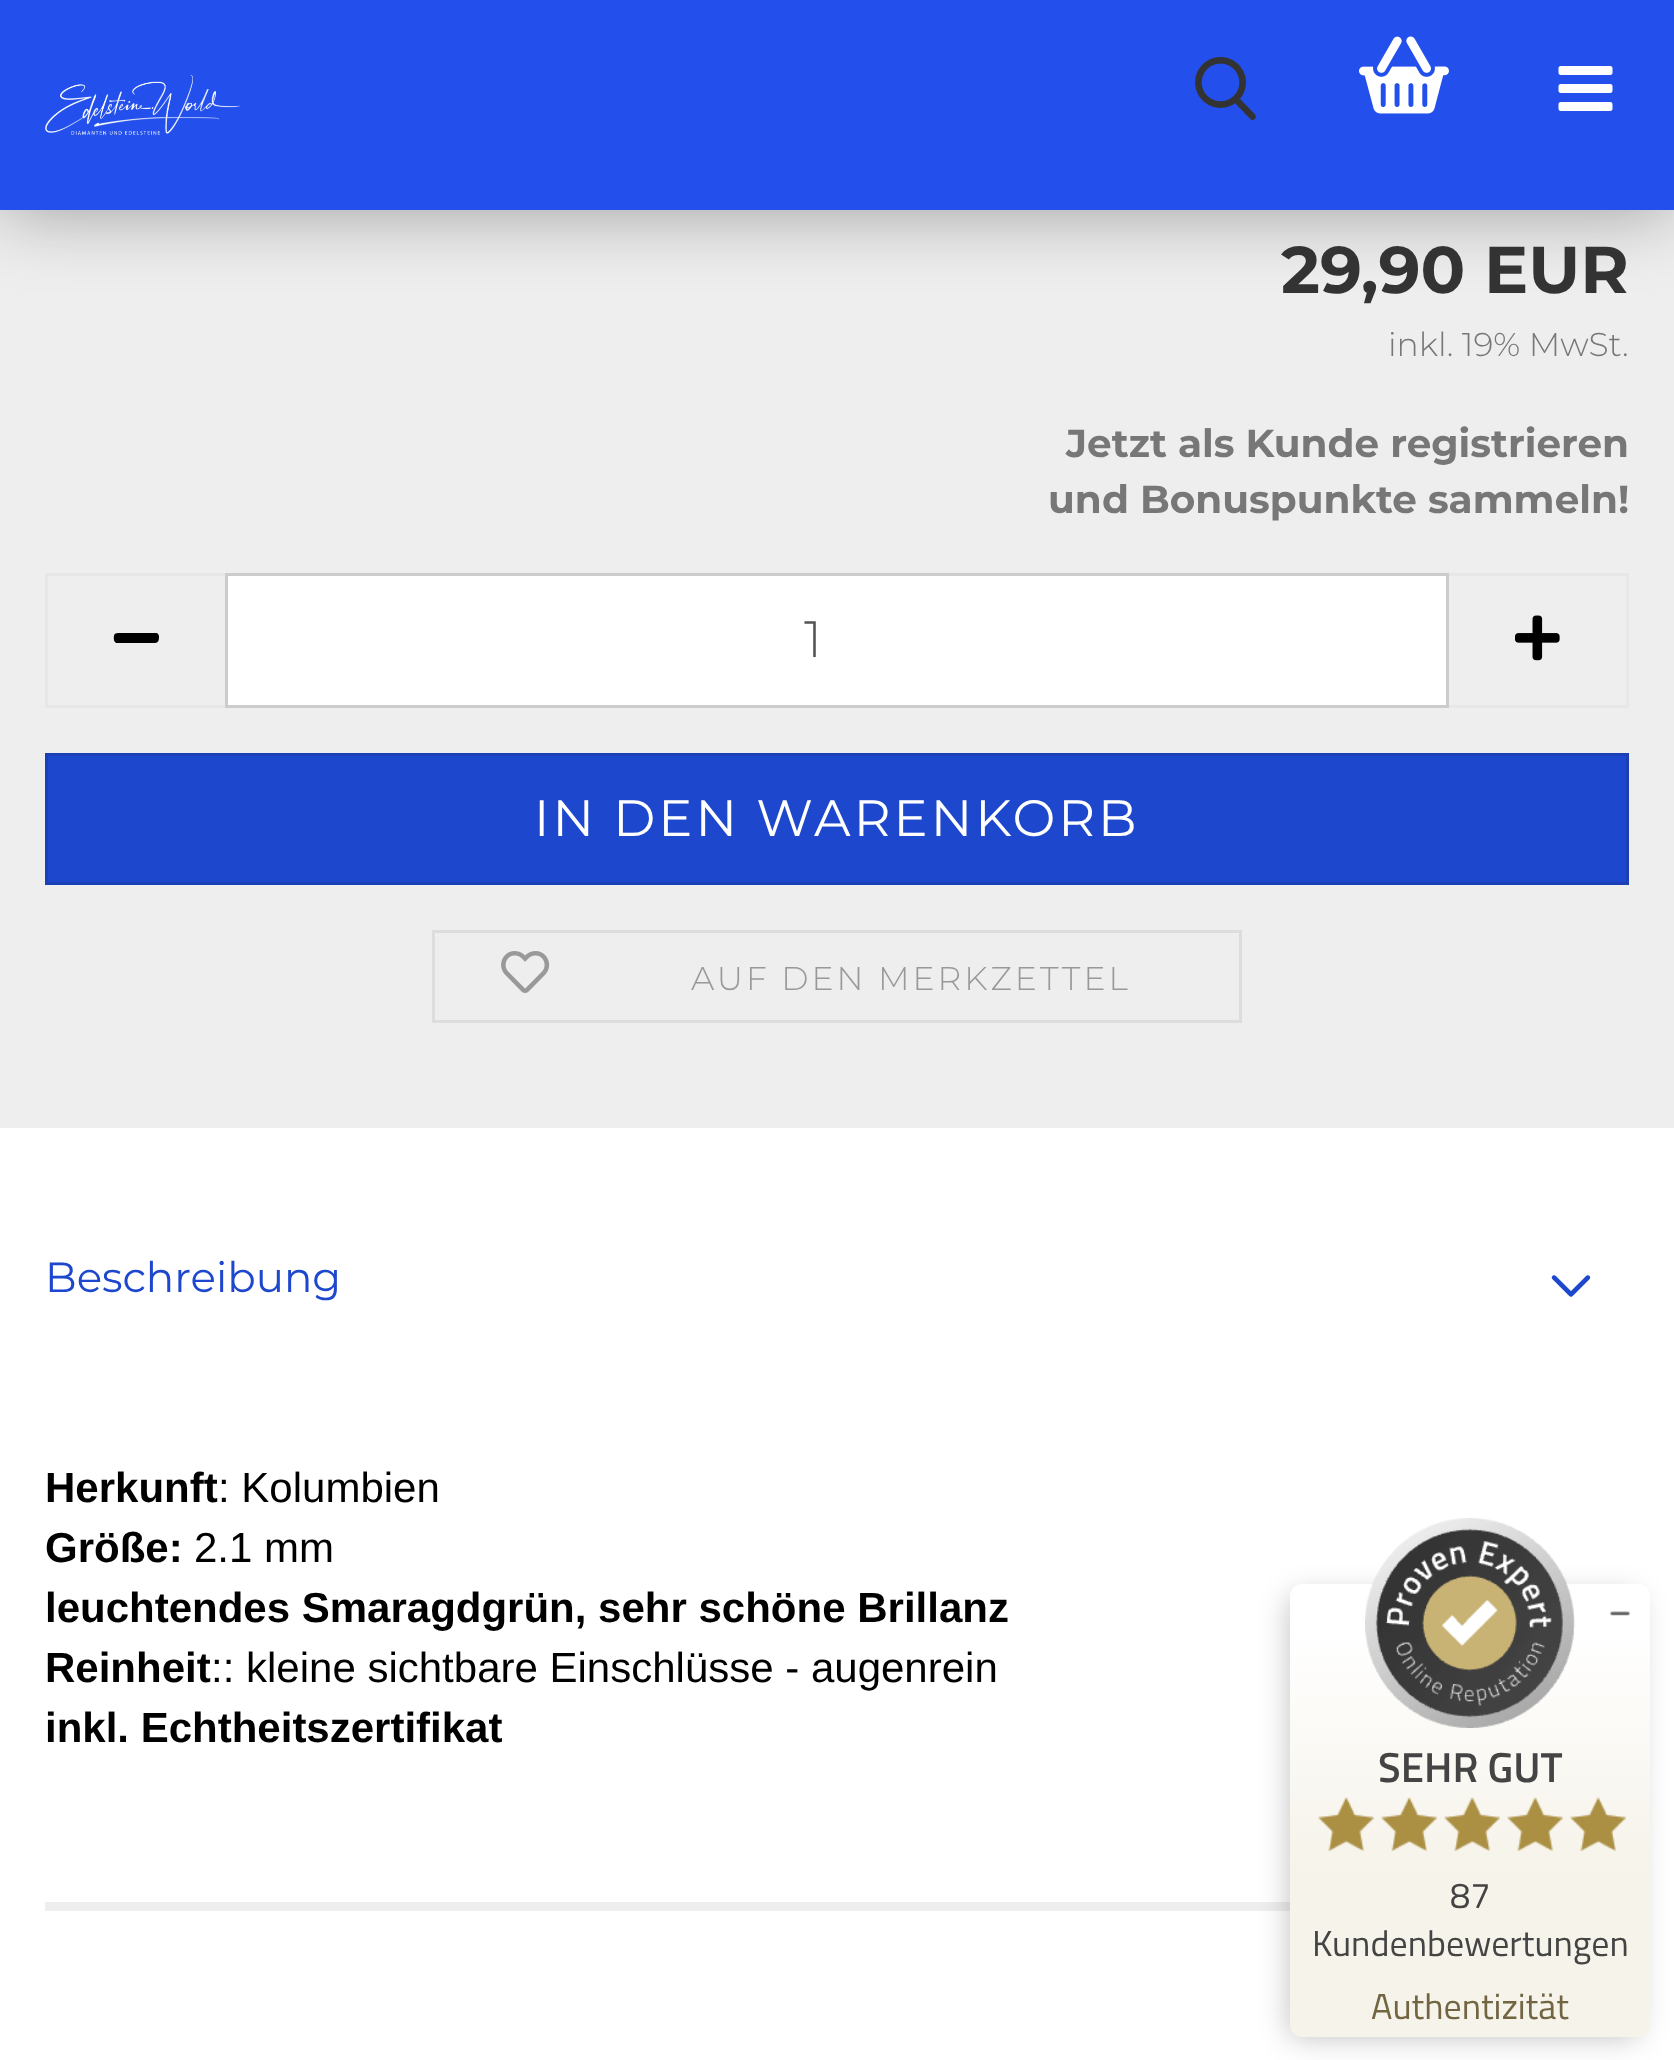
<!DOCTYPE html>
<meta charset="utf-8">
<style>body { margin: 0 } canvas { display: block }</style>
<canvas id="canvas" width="1674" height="2060"></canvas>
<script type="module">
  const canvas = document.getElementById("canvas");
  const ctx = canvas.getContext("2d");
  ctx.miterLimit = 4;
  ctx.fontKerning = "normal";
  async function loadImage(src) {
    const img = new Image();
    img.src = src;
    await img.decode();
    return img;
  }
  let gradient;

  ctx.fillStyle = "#ffffff";
  ctx.fillRect(0, 0, 1674, 2060);
  ctx.fillStyle = "#eeeeee";
  ctx.fillRect(0, 210, 1674, 918);
  ctx.fillStyle = "rgba(0, 0, 0, 0.35)";
  ctx.filter = "blur(37.5px)";
  ctx.beginPath();
  ctx.rect(0, 0, 1674, 210);
  ctx.fill();
  ctx.filter = "none";
  ctx.fillStyle = "#2350ec";
  ctx.fillRect(0, 0, 1674, 210);
  ctx.drawImage(await loadImage("img1.png"), 45, 75, 195, 60);
  ctx.drawImage(await loadImage("img2.png"), 1195, 57, 61, 63);
  ctx.drawImage(await loadImage("img3.png"), 1359, 36, 90, 78);
  ctx.drawImage(await loadImage("img4.png"), 1558, 66, 55, 45);
  ctx.font = "bold 66px Montserrat";
  ctx.fillStyle = "#333333";
  ctx.fillText("29,90 EUR", 1281, 293);
  ctx.font = "300 33px Montserrat";
  ctx.fillStyle = "#777777";
  ctx.fillText("inkl. 19% MwSt.", 1388, 356);
  ctx.font = "bold 39px Montserrat";
  ctx.fillText("Jetzt als Kunde registrieren", 1066, 457);
  ctx.fillText("und Bonuspunkte sammeln!", 1048, 513);
  ctx.fillStyle = "#e7e7e7";
  ctx.fillRect(45, 573, 180, 3);
  ctx.fillRect(45, 705, 180, 3);
  ctx.fillRect(45, 573, 3, 135);
  ctx.fillStyle = "#000000";
  ctx.beginPath();
  ctx.moveTo(155, 633);
  ctx.lineTo(157, 633);
  ctx.bezierCurveTo(158, 634, 159, 635, 159, 636);
  ctx.bezierCurveTo(159, 639, 159, 643, 155, 643);
  ctx.lineTo(116, 643);
  ctx.bezierCurveTo(115, 642, 114, 641, 114, 640);
  ctx.bezierCurveTo(113, 632, 116, 633, 124, 633);
  ctx.closePath();
  ctx.fill();
  ctx.fillStyle = "#ffffff";
  ctx.beginPath();
  ctx.rect(226.5, 574.5, 1221, 132);
  ctx.fill();
  ctx.strokeStyle = "#cccccc";
  ctx.lineWidth = 3;
  ctx.stroke();
  ctx.font = "300 51px Montserrat";
  ctx.fillStyle = "#555555";
  ctx.fillText("1", 804, 657);
  ctx.fillStyle = "#e7e7e7";
  ctx.fillRect(1449, 573, 180, 3);
  ctx.fillRect(1626, 573, 3, 135);
  ctx.fillRect(1449, 705, 180, 3);
  ctx.drawImage(await loadImage("img5.png"), 1515, 615, 45, 46);
  ctx.fillStyle = "#1d47cd";
  ctx.beginPath();
  ctx.rect(46.5, 754.5, 1581, 129);
  ctx.fill();
  ctx.strokeStyle = "#1a3fb7";
  ctx.stroke();
  ctx.letterSpacing = "3px";
  ctx.font = "51px Montserrat";
  ctx.fillStyle = "#ffffff";
  ctx.fillText("IN DEN WARENKORB", 534, 836);
  ctx.strokeStyle = "#dddddd";
  ctx.strokeRect(433.5, 931.5, 807, 90);
  ctx.drawImage(await loadImage("img6.png"), 501, 951, 49, 42);
  ctx.font = "300 33px Montserrat";
  ctx.fillStyle = "#999999";
  ctx.fillText("AUF DEN MERKZETTEL", 691, 990);
  ctx.letterSpacing = "0px";
  ctx.font = "42px Montserrat";
  ctx.fillStyle = "#1d47cd";
  ctx.fillText("Beschreibung", 45, 1292);
  ctx.drawImage(await loadImage("img7.png"), 1551, 1275, 40, 22);
  ctx.fillStyle = "#eeeeee";
  ctx.fillRect(45, 1902, 1245, 9);
  ctx.font = "bold 42px Liberation Sans";
  ctx.fillStyle = "#000000";
  ctx.fillText("Herkunft", 45, 1502);
  ctx.font = "42px Liberation Sans";
  ctx.fillText(": Kolumbien", 218, 1502);
  ctx.font = "bold 42px Liberation Sans";
  ctx.fillText("Größe:", 45, 1562);
  ctx.font = "42px Liberation Sans";
  ctx.fillText("2.1 mm", 194, 1562);
  ctx.font = "bold 42px Liberation Sans";
  ctx.fillText("leuchtendes Smaragdgrün, sehr schöne Brillanz", 45, 1622);
  ctx.fillText("Reinheit", 45, 1682);
  ctx.font = "42px Liberation Sans";
  ctx.fillText(":: kleine sichtbare Einschlüsse - augenrein", 211, 1682);
  ctx.font = "bold 42px Liberation Sans";
  ctx.fillText("inkl. Echtheitszertifikat", 45, 1742);
  ctx.fillStyle = "rgba(0, 0, 0, 0.25)";
  ctx.filter = "blur(15px)";
  ctx.beginPath();
  ctx.roundRect(1290, 1596, 348, 441, 6);
  ctx.fill();
  ctx.filter = "none";
  gradient = ctx.createLinearGradient(1470, 2037, 1470, 1584);
  gradient.addColorStop(0.37, "#f6f3ea");
  gradient.addColorStop(0.9, "#ffffff");
  ctx.fillStyle = gradient;
  ctx.beginPath();
  ctx.roundRect(1290, 1584, 360, 453, 12);
  ctx.fill();
  ctx.drawImage(await loadImage("img8.png"), 1610, 1611, 20, 5);
  ctx.drawImage(await loadImage("img9.png"), 1365, 1518, 210, 210);
  ctx.font = "600 42px Titillium Web";
  ctx.fillStyle = "#444444";
  ctx.fillText("SEHR GUT", 1378, 1782);
  ctx.drawImage(await loadImage("img10.png"), 1318, 1797, 56, 54);
  ctx.drawImage(await loadImage("img10.png"), 1381, 1797, 56, 54);
  ctx.drawImage(await loadImage("img11.png"), 1444, 1797, 56, 54);
  ctx.drawImage(await loadImage("img11.png"), 1507, 1797, 56, 54);
  ctx.drawImage(await loadImage("img11.png"), 1570, 1797, 56, 54);
  ctx.font = "36px Titillium Web";
  ctx.fillText("87", 1450, 1908);
  ctx.fillText("Kundenbewertungen", 1312, 1956);
  ctx.fillStyle = "#726542";
  ctx.fillText("Authentizität", 1371, 2019);
</script>
